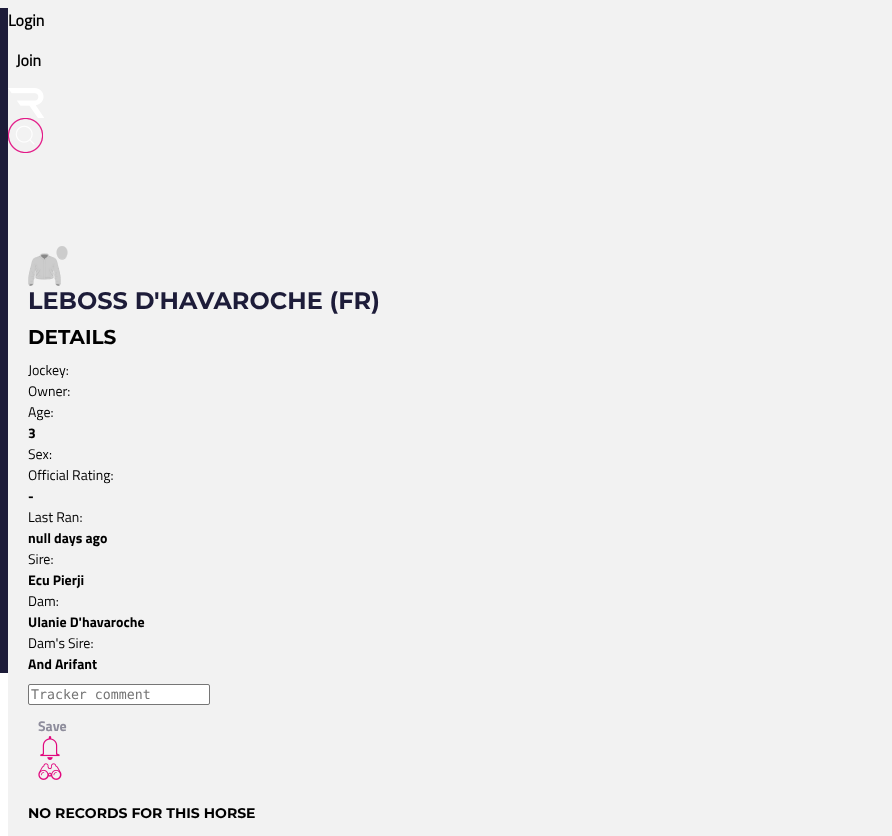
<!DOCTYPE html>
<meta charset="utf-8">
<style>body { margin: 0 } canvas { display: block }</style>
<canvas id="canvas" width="892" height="836"></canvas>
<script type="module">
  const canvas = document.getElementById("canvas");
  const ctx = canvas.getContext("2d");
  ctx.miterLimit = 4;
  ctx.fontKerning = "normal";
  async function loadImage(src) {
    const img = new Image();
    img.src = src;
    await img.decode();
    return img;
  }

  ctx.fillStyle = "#f2f2f2";
  ctx.fillRect(0, 0, 892, 836);
  ctx.font = "bold 16px Titillium Web";
  ctx.fillStyle = "#000000";
  ctx.fillText("Login", 8, 26);
  ctx.fillText("Join", 16, 66);
  ctx.drawImage(await loadImage("img1.png"), 8, 88, 36, 30);
  ctx.drawImage(await loadImage("img2.png"), 8, 118, 35, 35);
  ctx.fillStyle = "#ffffff";
  ctx.fillRect(0, 673, 8, 163);
  ctx.fillStyle = "#1d1c39";
  ctx.fillRect(0, 8, 8, 665);
  ctx.drawImage(await loadImage("img3.png"), 28, 246, 40, 40);
  ctx.font = "bold 24px Montserrat";
  ctx.fillText("LEBOSS D'HAVAROCHE (FR)", 28, 309);
  ctx.font = "bold 20px Montserrat";
  ctx.fillStyle = "#000000";
  ctx.fillText("DETAILS", 28, 344);
  ctx.font = "14px Titillium Web";
  ctx.fillText("Jockey:", 28, 375);
  ctx.fillText("Owner:", 28, 396);
  ctx.fillText("Age:", 28, 417);
  ctx.font = "bold 14px 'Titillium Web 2'";
  ctx.fillText("3", 28, 438);
  ctx.font = "14px Titillium Web";
  ctx.fillText("Sex:", 28, 459);
  ctx.fillText("Official Rating:", 28, 480);
  ctx.font = "bold 14px 'Titillium Web 2'";
  ctx.fillText("-", 28, 501);
  ctx.font = "14px Titillium Web";
  ctx.fillText("Last Ran:", 28, 522);
  ctx.font = "bold 14px 'Titillium Web 2'";
  ctx.fillText("null days ago", 28, 543);
  ctx.font = "14px Titillium Web";
  ctx.fillText("Sire:", 28, 564);
  ctx.font = "bold 14px 'Titillium Web 2'";
  ctx.fillText("Ecu Pierji", 28, 585);
  ctx.font = "14px Titillium Web";
  ctx.fillText("Dam:", 28, 606);
  ctx.font = "bold 14px 'Titillium Web 2'";
  ctx.fillText("Ulanie D'havaroche", 28, 627);
  ctx.font = "14px Titillium Web";
  ctx.fillText("Dam's Sire:", 28, 648);
  ctx.font = "bold 14px 'Titillium Web 2'";
  ctx.fillText("And Arifant", 28, 669);
  ctx.fillStyle = "#ffffff";
  ctx.beginPath();
  ctx.roundRect(28.5, 684.5, 181, 20, 1.5);
  ctx.fill();
  ctx.strokeStyle = "#767676";
  ctx.stroke();
  ctx.font = "13.25px DejaVu Sans Mono";
  ctx.fillStyle = "#757575";
  ctx.fillText("Tracker comment", 31, 699);
  ctx.font = "bold 14px 'Titillium Web 2'";
  ctx.fillStyle = "#8e8d9c";
  ctx.fillText("Save", 38, 731);
  ctx.drawImage(await loadImage("img4.png"), 40, 736, 20, 24);
  ctx.drawImage(await loadImage("img5.png"), 38, 763, 24, 17);
  ctx.font = "bold 14px Montserrat";
  ctx.fillStyle = "#000000";
  ctx.fillText("NO RECORDS FOR THIS HORSE", 28, 818);
</script>
